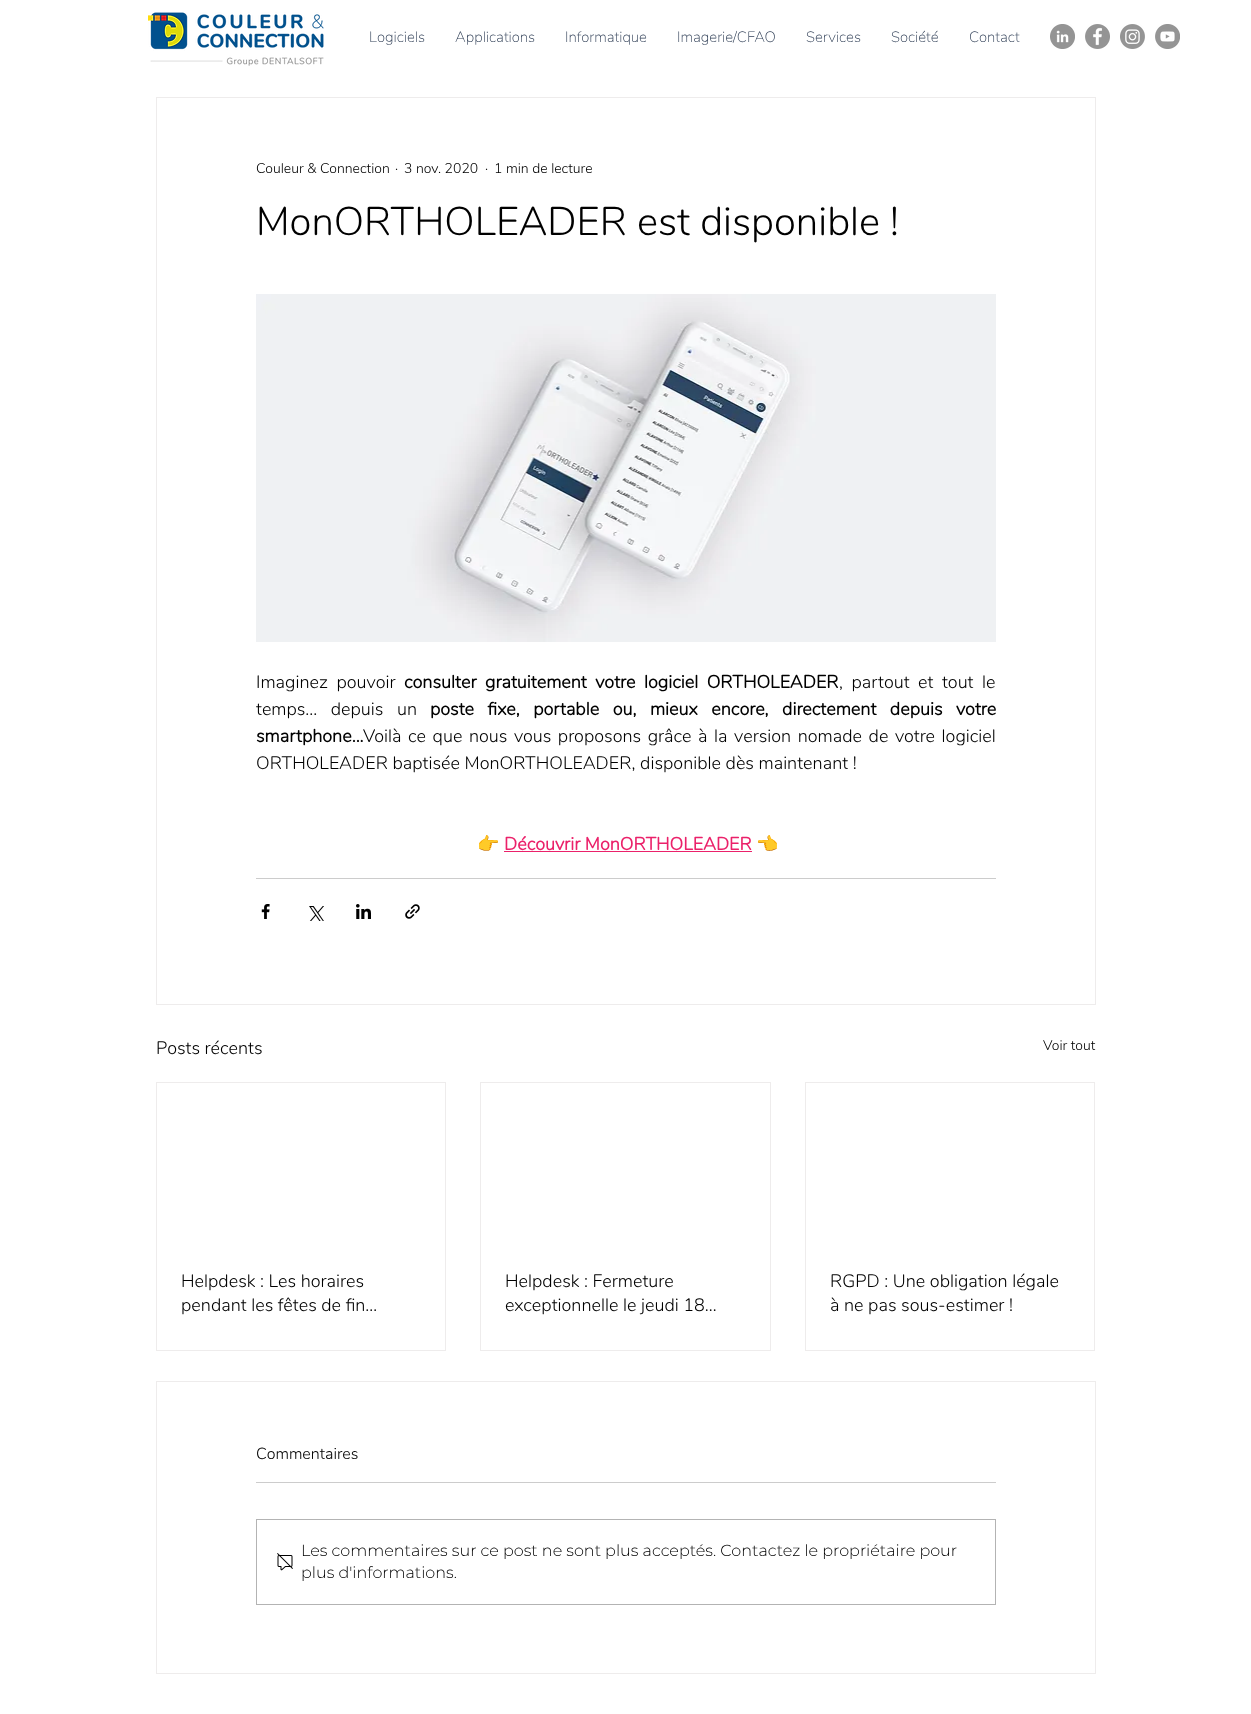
<!DOCTYPE html>
<meta charset="utf-8">
<style>body { margin: 0 } canvas { display: block }</style>
<canvas id="canvas" width="1251" height="1714"></canvas>
<script type="module">
  const canvas = document.getElementById("canvas");
  const ctx = canvas.getContext("2d");
  ctx.miterLimit = 4;
  ctx.fontKerning = "normal";
  async function loadImage(src) {
    const img = new Image();
    img.src = src;
    await img.decode();
    return img;
  }

  ctx.fillStyle = "#ffffff";
  ctx.fillRect(0, 0, 1251, 1714);
  ctx.drawImage(await loadImage("img1.png"), 148, 12, 176, 54);
  ctx.font = "200 15px Nunito";
  ctx.fillStyle = "#324158";
  ctx.fillText("Logiciels", 369, 42);
  ctx.fillText("Applications", 455, 42);
  ctx.fillText("Informatique", 565, 42);
  ctx.fillText("Imagerie/CFAO", 677, 42);
  ctx.fillText("Services", 806, 42);
  ctx.fillText("Société", 891, 42);
  ctx.fillText("Contact", 969, 42);
  ctx.drawImage(await loadImage("img2.png"), 1050, 24, 25, 25);
  ctx.drawImage(await loadImage("img3.png"), 1085, 24, 25, 25);
  ctx.drawImage(await loadImage("img4.png"), 1120, 24, 25, 25);
  ctx.drawImage(await loadImage("img5.png"), 1155, 24, 25, 25);
  ctx.strokeStyle = "#eeecec";
  ctx.strokeRect(156.5, 97.5, 939, 907);
  ctx.font = "300 14px Nunito";
  ctx.fillStyle = "#000000";
  ctx.fillText("Couleur & Connection", 256, 173);
  ctx.fillText("·", 395, 173);
  ctx.fillText("3 nov. 2020", 404, 173);
  ctx.fillText("·", 485, 173);
  ctx.fillText("1 min de lecture", 494, 173);
  ctx.font = "300 40px Nunito";
  ctx.fillText("MonORTHOLEADER est disponible !", 256, 235);
  ctx.drawImage(await loadImage("img6.png"), 256, 294, 740, 348);
  ctx.wordSpacing = "4px";
  ctx.font = "300 18px Nunito";
  ctx.fillText("Imaginez pouvoir", 256, 688);
  ctx.font = "bold 18px Nunito";
  ctx.fillText("consulter gratuitement votre logiciel ORTHOLEADER", 404, 688);
  ctx.font = "300 18px Nunito";
  ctx.fillText(", partout et tout le", 839, 688);
  ctx.wordSpacing = "9px";
  ctx.fillText("temps... depuis un", 256, 715);
  ctx.font = "bold 18px Nunito";
  ctx.fillText("poste fixe, portable ou, mieux encore, directement depuis votre", 430, 715);
  ctx.wordSpacing = "0px";
  ctx.fillText("smartphone...", 256, 742);
  ctx.wordSpacing = "2px";
  ctx.font = "300 18px Nunito";
  ctx.fillText("Voilà ce que nous vous proposons grâce à la version nomade de votre logiciel", 363, 742);
  ctx.wordSpacing = "0px";
  ctx.fillText("ORTHOLEADER baptisée MonORTHOLEADER, disponible dès maintenant !", 256, 769);
  ctx.font = "18px Noto Color Emoji";
  ctx.fillText("👉", 477, 850);
  ctx.font = "bold 18px Nunito";
  ctx.fillStyle = "#eb216a";
  ctx.fillText("Découvrir MonORTHOLEADER", 504, 850);
  ctx.fillRect(504, 851, 248, 1);
  ctx.font = "18px Noto Color Emoji";
  ctx.fillStyle = "#000000";
  ctx.fillText("👈", 756, 850);
  ctx.fillStyle = "#cccccc";
  ctx.fillRect(256, 878, 740, 1);
  ctx.drawImage(await loadImage("img7.png"), 261, 904, 9, 15);
  ctx.drawImage(await loadImage("img8.png"), 309, 906, 15, 15);
  ctx.drawImage(await loadImage("img9.png"), 356, 904, 15, 15);
  ctx.drawImage(await loadImage("img10.png"), 405, 904, 15, 15);
  ctx.font = "300 18px Nunito";
  ctx.fillStyle = "#000000";
  ctx.fillText("Posts récents", 156, 1054);
  ctx.font = "300 14px Nunito";
  ctx.fillText("Voir tout", 1043, 1050);
  ctx.strokeRect(156.5, 1082.5, 289, 268);
  ctx.font = "300 18px Nunito";
  ctx.fillText("Helpdesk : Les horaires", 181, 1287);
  ctx.fillText("pendant les fêtes de fin…", 181, 1311);
  ctx.strokeRect(480.5, 1082.5, 290, 268);
  ctx.fillText("Helpdesk : Fermeture", 505, 1287);
  ctx.fillText("exceptionnelle le jeudi 18…", 505, 1311);
  ctx.strokeRect(805.5, 1082.5, 289, 268);
  ctx.fillText("RGPD : Une obligation légale", 830, 1287);
  ctx.fillText("à ne pas sous-estimer !", 830, 1311);
  ctx.strokeRect(156.5, 1381.5, 939, 292);
  ctx.font = "300 16px Nunito";
  ctx.fillText("Commentaires", 256, 1459);
  ctx.fillStyle = "#cccccc";
  ctx.fillRect(256, 1482, 740, 1);
  ctx.strokeStyle = "#b3b3b3";
  ctx.strokeRect(256.5, 1519.5, 739, 85);
  ctx.drawImage(await loadImage("img11.png"), 277, 1553, 16, 18);
  ctx.font = "300 16px Montserrat";
  ctx.fillStyle = "#000000";
  ctx.fillText("Les commentaires sur ce post ne sont plus acceptés. Contactez le propriétaire pour", 301, 1556);
  ctx.fillText("plus d'informations.", 301, 1578);
</script>
